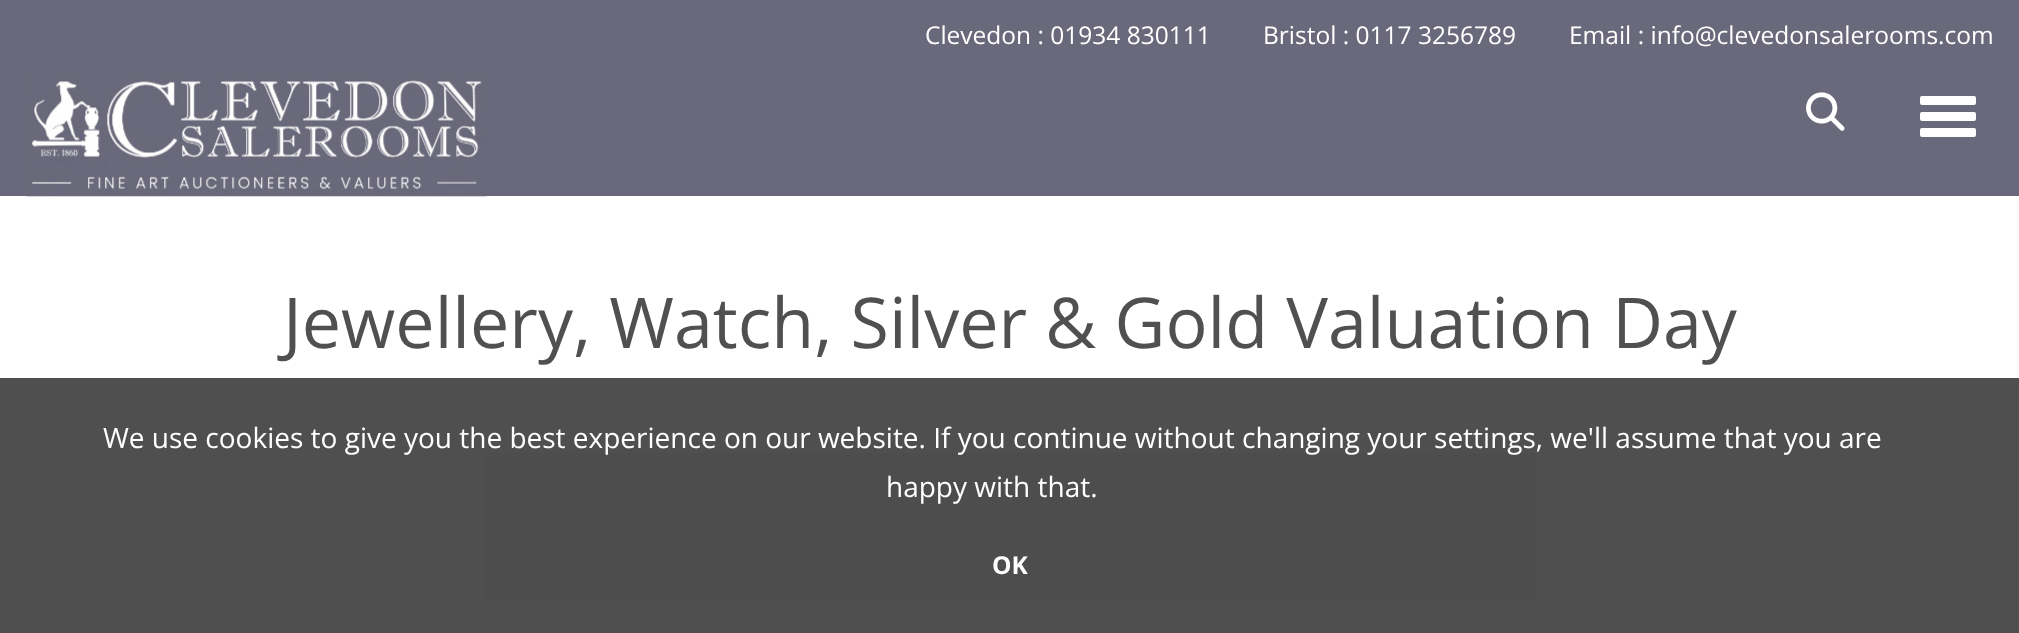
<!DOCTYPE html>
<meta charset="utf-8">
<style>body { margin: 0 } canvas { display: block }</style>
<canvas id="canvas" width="2019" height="633"></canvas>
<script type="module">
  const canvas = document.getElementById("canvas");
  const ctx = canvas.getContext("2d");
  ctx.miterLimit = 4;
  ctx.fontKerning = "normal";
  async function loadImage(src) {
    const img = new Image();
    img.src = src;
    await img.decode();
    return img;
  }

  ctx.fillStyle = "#ffffff";
  ctx.fillRect(0, 0, 2019, 633);
  ctx.fillStyle = "#4f4f4f";
  ctx.fillRect(0, 378, 2019, 255);
  ctx.fillStyle = "#6a697b";
  ctx.fillRect(0, 0, 2019, 196);
  ctx.drawImage(await loadImage("img1.png"), 26, 74, 462, 123);
  ctx.drawImage(await loadImage("img2.png"), 1806, 92, 39, 39);
  ctx.fillStyle = "#ffffff";
  ctx.beginPath();
  ctx.roundRect(1920, 96, 56, 9, 2);
  ctx.fill();
  ctx.beginPath();
  ctx.roundRect(1920, 112, 56, 9, 2);
  ctx.fill();
  ctx.beginPath();
  ctx.roundRect(1920, 128, 56, 9, 2);
  ctx.fill();
  ctx.font = "24.5px Open Sans";
  ctx.fillText("Clevedon : 01934 830111", 925, 44);
  ctx.fillText("Bristol : 0117 3256789", 1263, 44);
  ctx.fillText("Email : info@clevedonsalerooms.com", 1569, 44);
  ctx.font = "70px Open Sans";
  ctx.fillStyle = "#505050";
  ctx.fillText("Jewellery, Watch, Silver & Gold Valuation Day", 283, 348);
  ctx.drawImage(await loadImage("img3.png"), 485, 453, 1050, 147);
  ctx.font = "28px Open Sans";
  ctx.fillStyle = "#ffffff";
  ctx.fillText("We use cookies to give you the best experience on our website. If you continue without changing your settings, we'll assume that you are", 103, 448);
  ctx.fillText("happy with that.", 886, 497);
  ctx.font = "bold 24.5px Open Sans";
  ctx.fillText("OK", 992, 574);
</script>
